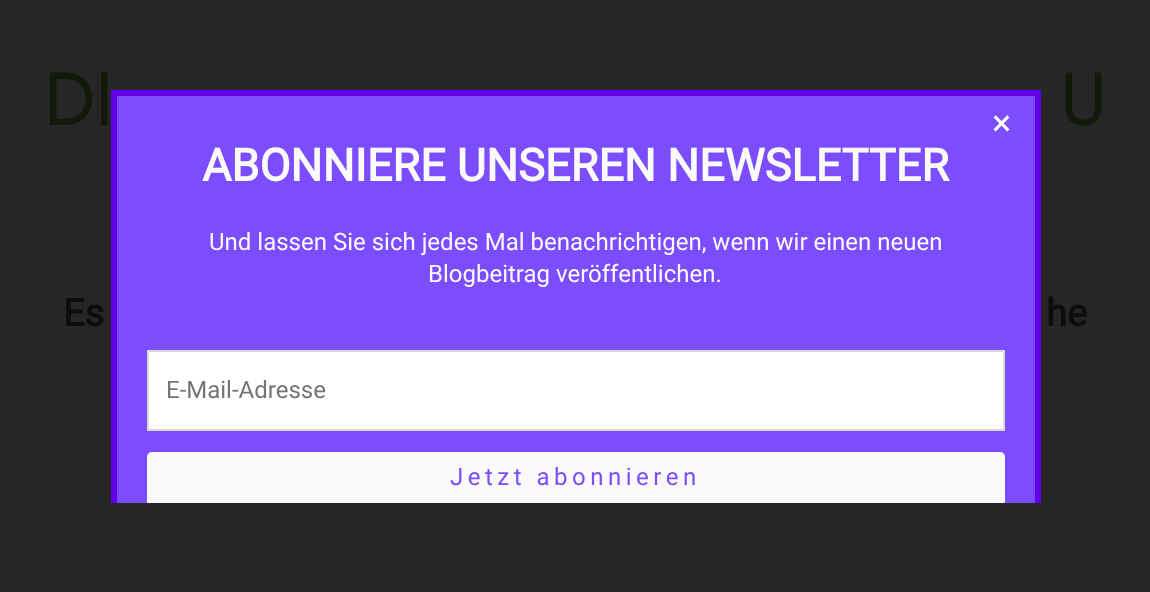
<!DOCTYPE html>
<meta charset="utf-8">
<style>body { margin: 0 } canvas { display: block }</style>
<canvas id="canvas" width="1150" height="592"></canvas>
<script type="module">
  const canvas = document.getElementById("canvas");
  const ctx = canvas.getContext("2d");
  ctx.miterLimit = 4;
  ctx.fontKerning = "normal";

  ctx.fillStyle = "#262626";
  ctx.fillRect(0, 0, 1150, 592);
  ctx.font = "75px Jost";
  ctx.fillStyle = "#11190b";
  ctx.fillText("DI", 44, 125);
  ctx.fillText("U", 1060, 125);
  ctx.font = "bold 38px Roboto";
  ctx.fillStyle = "#0d0d0d";
  ctx.fillText("Es", 63, 326);
  ctx.fillText("he", 1046, 326);
  ctx.fillStyle = "#7c4dff";
  ctx.fillRect(117, 96, 918, 407);
  ctx.save();
  ctx.beginPath();
  ctx.rect(111, 90, 930, 413);
  ctx.clip();
  ctx.strokeStyle = "#6200ea";
  ctx.lineWidth = 6;
  ctx.strokeRect(114, 93, 924, 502);
  ctx.restore();
  ctx.letterSpacing = "4.5px";
  ctx.font = "36px Roboto";
  ctx.fillStyle = "#fafafa";
  ctx.fillText("×", 992, 135);
  ctx.letterSpacing = "0px";
  ctx.font = "bold 45px Roboto";
  ctx.fillText("ABONNIERE UNSEREN NEWSLETTER", 202, 181);
  ctx.font = "24px Roboto";
  ctx.fillText("Und lassen Sie sich jedes Mal benachrichtigen, wenn wir einen neuen", 209, 250);
  ctx.fillText("Blogbeitrag veröffentlichen.", 428, 282);
  ctx.fillStyle = "#ffffff";
  ctx.beginPath();
  ctx.rect(148, 351, 856, 79);
  ctx.fill();
  ctx.strokeStyle = "#d9d9d9";
  ctx.lineWidth = 2;
  ctx.stroke();
  ctx.fillStyle = "#757575";
  ctx.fillText("E-Mail-Adresse", 166, 398);
  ctx.save();
  ctx.beginPath();
  ctx.rect(111, 90, 930, 413);
  ctx.clip();
  ctx.fillStyle = "#fafafa";
  ctx.beginPath();
  ctx.roundRect(147, 452, 858, 54, 5);
  ctx.fill();
  ctx.restore();
  ctx.letterSpacing = "4.5px";
  ctx.fillStyle = "#7c4dff";
  ctx.fillText("Jetzt abonnieren", 450, 485);
</script>
